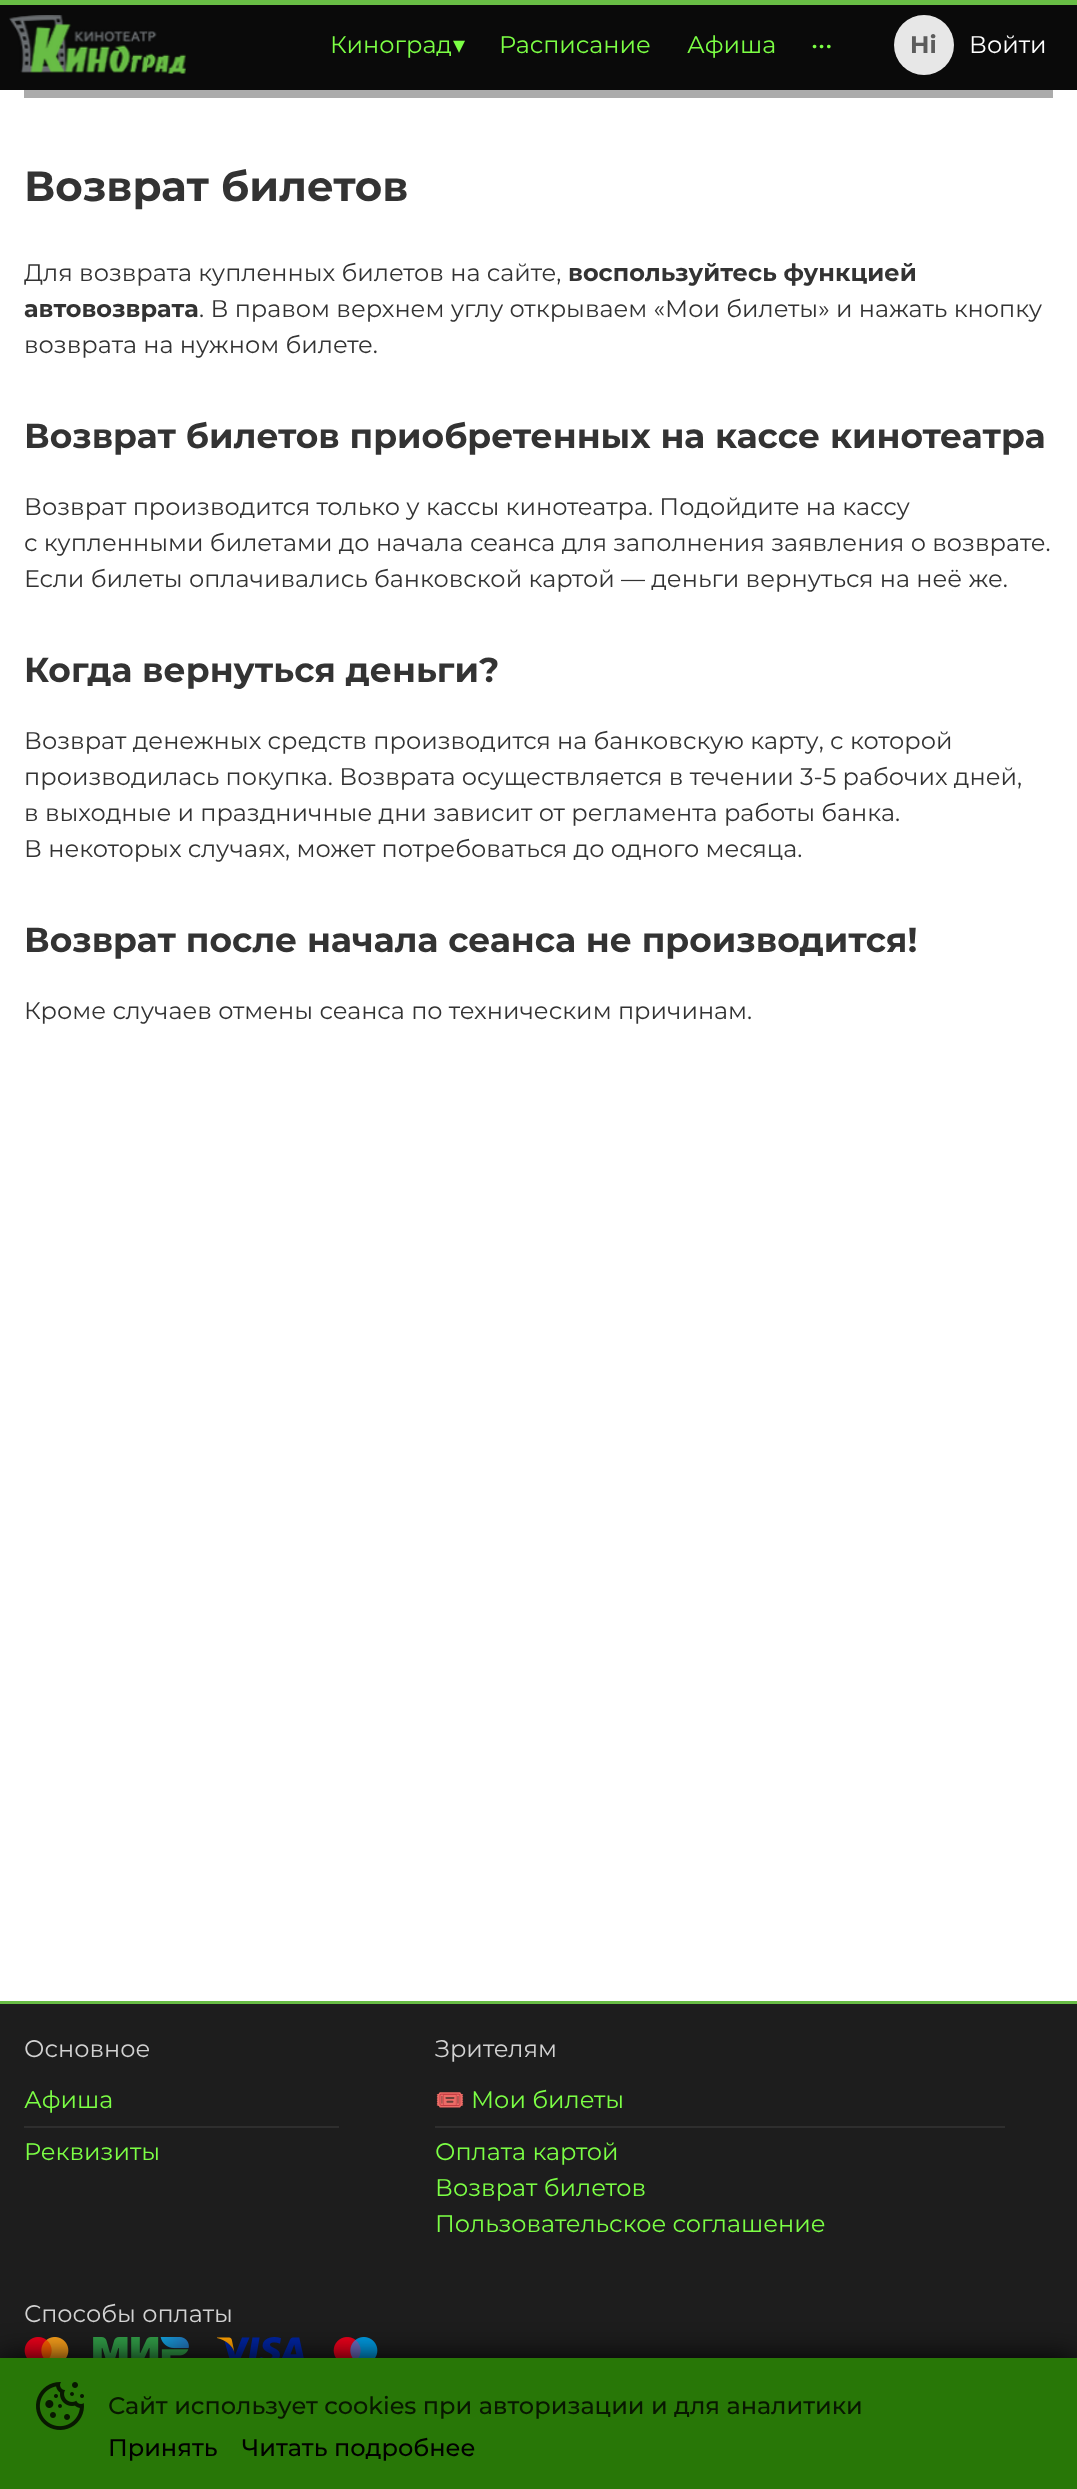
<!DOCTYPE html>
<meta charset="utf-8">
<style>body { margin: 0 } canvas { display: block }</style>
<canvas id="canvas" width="1077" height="2489"></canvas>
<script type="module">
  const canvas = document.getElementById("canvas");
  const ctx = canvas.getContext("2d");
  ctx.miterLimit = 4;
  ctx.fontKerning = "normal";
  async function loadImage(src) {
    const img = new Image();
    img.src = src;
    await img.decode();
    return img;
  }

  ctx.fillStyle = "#ffffff";
  ctx.fillRect(0, 0, 1077, 2489);
  ctx.fillStyle = "#68bd45";
  ctx.fillRect(0, 0, 1077, 5);
  ctx.fillStyle = "#0a0a0a";
  ctx.fillRect(0, 5, 1077, 85);
  ctx.drawImage(await loadImage("img1.png"), 9, 15, 177, 59);
  ctx.font = "24px Montserrat";
  ctx.fillStyle = "#7cff45";
  ctx.fillText("Киноград", 330, 53);
  ctx.font = "24px DejaVu Sans";
  ctx.fillText("▾", 453, 53);
  ctx.font = "24px Montserrat";
  ctx.fillText("Расписание", 499, 53);
  ctx.fillText("Афиша", 687, 53);
  ctx.fillText("•••", 811, 53);
  ctx.fillStyle = "rgba(240, 240, 240, 0.96)";
  ctx.beginPath();
  ctx.arc(924, 45, 30, 0, Math.PI * 2);
  ctx.fill();
  ctx.font = "bold 24px Montserrat";
  ctx.fillStyle = "#5c5c5c";
  ctx.fillText("Hi", 910, 53);
  ctx.font = "24px Montserrat";
  ctx.fillStyle = "#ffffff";
  ctx.fillText("Войти", 969, 53);
  ctx.fillStyle = "#ababab";
  ctx.fillRect(24, 90, 1029, 8);
  ctx.font = "bold 42px Montserrat";
  ctx.fillStyle = "#333333";
  ctx.fillText("Возврат билетов", 24, 201);
  ctx.font = "24px Montserrat";
  ctx.fillText("Для возврата купленных билетов на сайте,", 24, 281);
  ctx.font = "bold 24px Montserrat";
  ctx.fillText("воспользуйтесь функцией", 568, 281);
  ctx.fillText("автовозврата", 24, 317);
  ctx.font = "24px Montserrat";
  ctx.fillText(". В правом верхнем углу открываем «Мои билеты» и нажать кнопку", 199, 317);
  ctx.fillText("возврата на нужном билете.", 24, 353);
  ctx.font = "bold 34.5px Montserrat";
  ctx.fillText("Возврат билетов приобретенных на кассе кинотеатра", 24, 448);
  ctx.font = "24px Montserrat";
  ctx.fillText("Возврат производится только у кассы кинотеатра. Подойдите на кассу", 24, 515);
  ctx.fillText("с купленными билетами до начала сеанса для заполнения заявления о возврате.", 24, 551);
  ctx.fillText("Если билеты оплачивались банковской картой — деньги вернуться на неё же.", 24, 587);
  ctx.font = "bold 34.5px Montserrat";
  ctx.fillText("Когда вернуться деньги?", 24, 682);
  ctx.font = "24px Montserrat";
  ctx.fillText("Возврат денежных средств производится на банковскую карту, с которой", 24, 749);
  ctx.fillText("производилась покупка. Возврата осуществляется в течении 3-5 рабочих дней,", 24, 785);
  ctx.fillText("в выходные и праздничные дни зависит от регламента работы банка.", 24, 821);
  ctx.fillText("В некоторых случаях, может потребоваться до одного месяца.", 24, 857);
  ctx.font = "bold 34.5px Montserrat";
  ctx.fillText("Возврат после начала сеанса не производится!", 24, 952);
  ctx.font = "24px Montserrat";
  ctx.fillText("Кроме случаев отмены сеанса по техническим причинам.", 24, 1019);
  ctx.fillStyle = "#1d1d1d";
  ctx.fillRect(0, 2004, 1077, 354);
  ctx.fillStyle = "#68bd45";
  ctx.fillRect(0, 2001, 1077, 3);
  ctx.fillStyle = "#d2d2d2";
  ctx.fillText("Основное", 24, 2057);
  ctx.fillStyle = "#7cff45";
  ctx.fillText("Афиша", 24, 2108);
  ctx.fillStyle = "#2e2e2e";
  ctx.fillRect(24, 2126, 315, 2);
  ctx.fillStyle = "#7cff45";
  ctx.fillText("Реквизиты", 24, 2160);
  ctx.fillStyle = "#d2d2d2";
  ctx.fillText("Зрителям", 435, 2057);
  ctx.font = "24px Noto Color Emoji";
  ctx.fillStyle = "#7cff45";
  ctx.fillText("🎟️", 435, 2108);
  ctx.font = "24px Montserrat";
  ctx.fillText("Мои билеты", 471, 2108);
  ctx.fillStyle = "#2e2e2e";
  ctx.fillRect(435, 2126, 570, 2);
  ctx.fillStyle = "#7cff45";
  ctx.fillText("Оплата картой", 435, 2160);
  ctx.fillText("Возврат билетов", 435, 2196);
  ctx.fillText("Пользовательское соглашение", 435, 2232);
  ctx.fillStyle = "#d2d2d2";
  ctx.fillText("Способы оплаты", 24, 2322);
  ctx.drawImage(await loadImage("img2.png"), 24, 2337, 45, 21);
  ctx.drawImage(await loadImage("img3.png"), 93, 2337, 96, 21);
  ctx.drawImage(await loadImage("img4.png"), 217, 2337, 87, 21);
  ctx.drawImage(await loadImage("img5.png"), 333, 2337, 45, 21);
  ctx.fillStyle = "rgba(0, 0, 0, 0.96)";
  ctx.filter = "blur(15px)";
  ctx.beginPath();
  ctx.rect(0, 2358, 1077, 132);
  ctx.fill();
  ctx.filter = "none";
  ctx.fillStyle = "#287707";
  ctx.fillRect(0, 2358, 1077, 131);
  ctx.drawImage(await loadImage("img6.png"), 36, 2382, 48, 48);
  ctx.font = "500 24px Montserrat";
  ctx.fillStyle = "#081801";
  ctx.fillText("Сайт использует cookies при авторизации и для аналитики", 108, 2414);
  ctx.fillStyle = "#000000";
  ctx.fillText("Принять", 108, 2456);
  ctx.fillText("Читать подробнее", 242, 2456);
</script>
